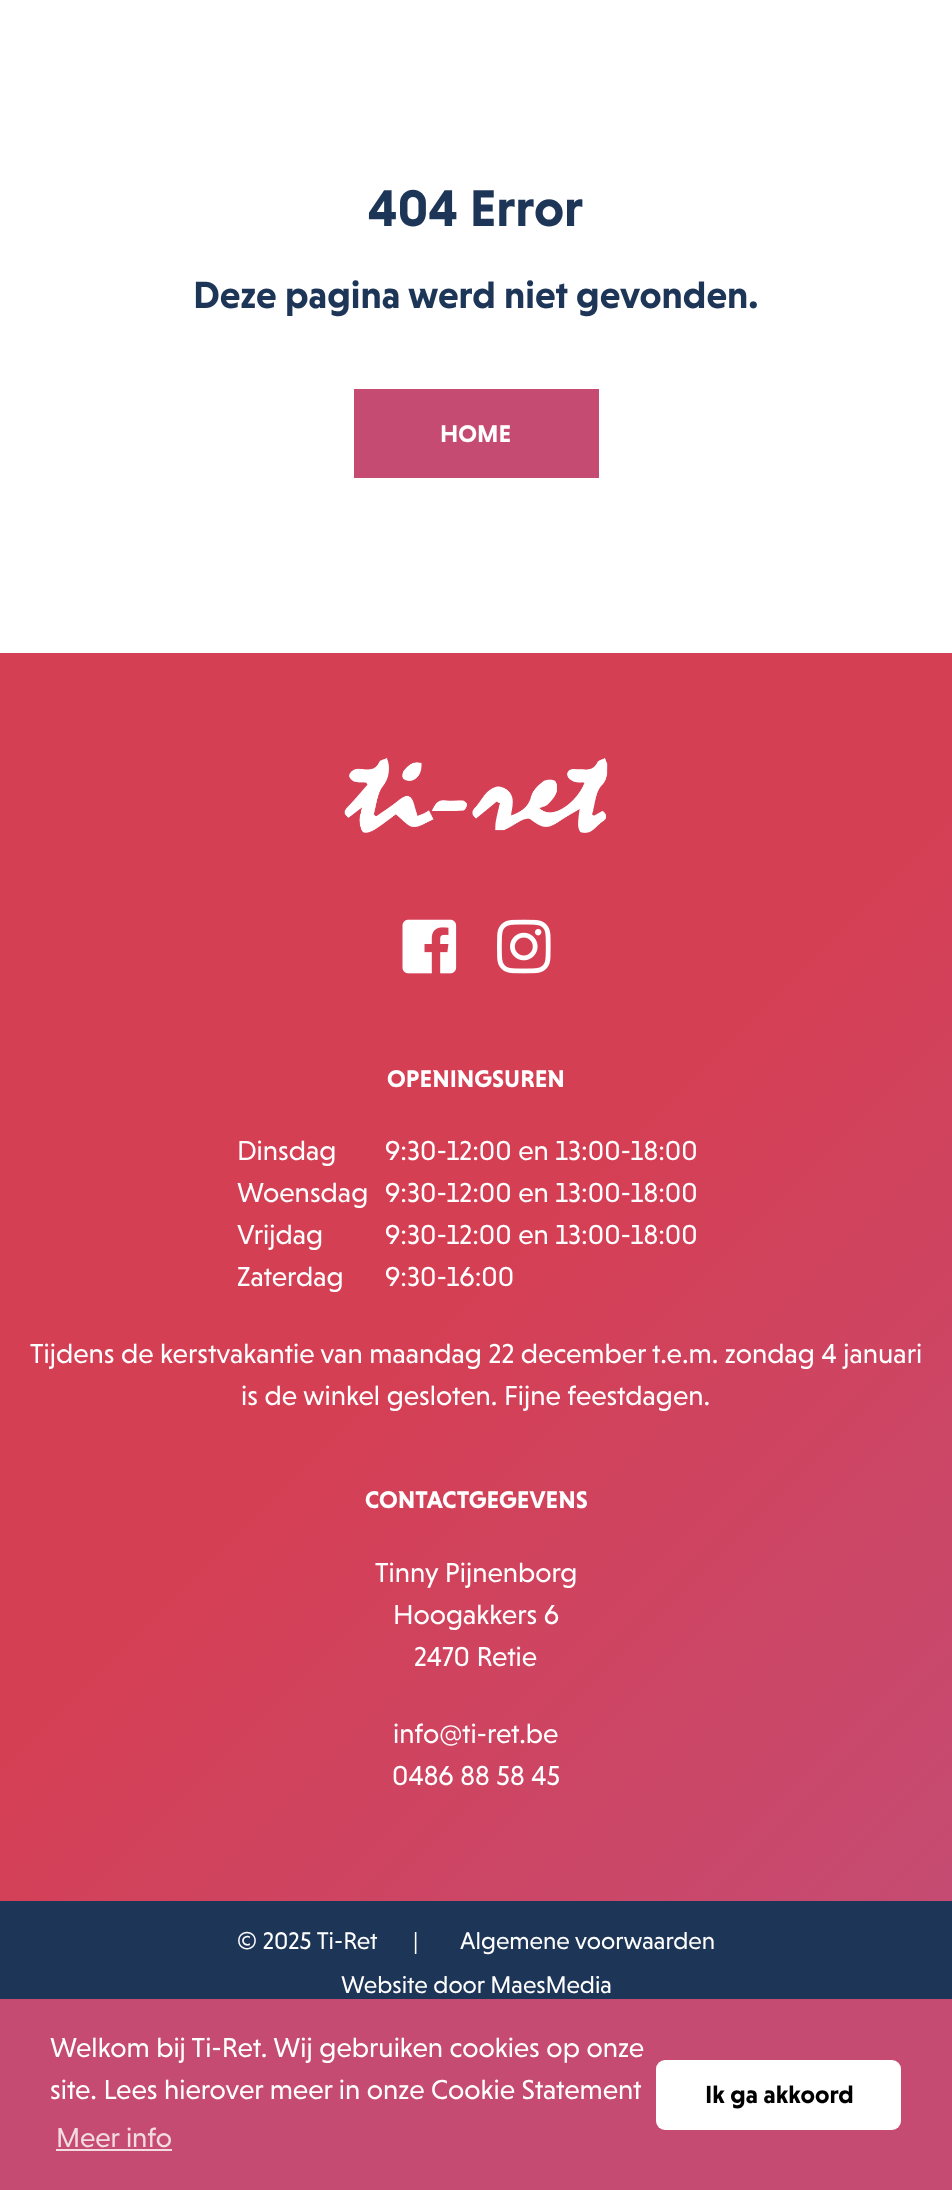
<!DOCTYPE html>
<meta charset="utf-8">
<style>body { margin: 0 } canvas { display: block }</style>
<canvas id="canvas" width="952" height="2190"></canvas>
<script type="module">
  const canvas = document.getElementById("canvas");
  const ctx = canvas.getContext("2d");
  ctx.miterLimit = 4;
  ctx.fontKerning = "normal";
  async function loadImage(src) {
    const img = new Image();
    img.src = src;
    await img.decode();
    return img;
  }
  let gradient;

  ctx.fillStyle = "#ffffff";
  ctx.fillRect(0, 0, 952, 2190);
  ctx.font = "bold 52.5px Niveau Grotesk";
  ctx.fillStyle = "#1d3557";
  ctx.fillText("404 Error", 368, 226);
  ctx.font = "bold 38.5px Niveau Grotesk";
  ctx.fillText("Deze pagina werd niet gevonden.", 193, 308);
  ctx.fillStyle = "#c54b72";
  ctx.fillRect(354, 389, 245, 89);
  ctx.font = "bold 24.5px Niveau Grotesk";
  ctx.fillStyle = "#ffffff";
  ctx.fillText("HOME", 440, 442);
  gradient = ctx.createLinearGradient(-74, 727, 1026, 1827);
  gradient.addColorStop(0.5, "#d53f54");
  gradient.addColorStop(1, "#c54b72");
  ctx.fillStyle = gradient;
  ctx.fillRect(0, 653, 952, 1248);
  ctx.drawImage(await loadImage("img1.png"), 344, 757, 264, 76);
  ctx.drawImage(await loadImage("img2.png"), 402, 919, 55, 55);
  ctx.drawImage(await loadImage("img3.png"), 497, 919, 54, 55);
  ctx.fillStyle = "#ffffff";
  ctx.fillText("OPENINGSUREN", 387, 1087);
  ctx.font = "28px Niveau Grotesk";
  ctx.fillText("Dinsdag", 237, 1160);
  ctx.fillText("9:30-12:00 en 13:00-18:00", 385, 1160);
  ctx.fillText("Woensdag", 237, 1202);
  ctx.fillText("9:30-12:00 en 13:00-18:00", 385, 1202);
  ctx.fillText("Vrijdag", 237, 1244);
  ctx.fillText("9:30-12:00 en 13:00-18:00", 385, 1244);
  ctx.fillText("Zaterdag", 237, 1286);
  ctx.fillText("9:30-16:00", 385, 1286);
  ctx.fillText("Tijdens de kerstvakantie van maandag 22 december t.e.m. zondag 4 januari", 30, 1363);
  ctx.fillText("is de winkel gesloten. Fijne feestdagen.", 241, 1405);
  ctx.font = "bold 24.5px Niveau Grotesk";
  ctx.fillText("CONTACTGEGEVENS", 365, 1508);
  ctx.font = "28px Niveau Grotesk";
  ctx.fillText("Tinny Pijnenborg", 375, 1582);
  ctx.fillText("Hoogakkers 6", 393, 1624);
  ctx.fillText("2470 Retie", 414, 1666);
  ctx.fillText("info@ti-ret.be", 393, 1743);
  ctx.fillText("0486 88 58 45", 392, 1785);
  ctx.fillStyle = "#1d3557";
  ctx.fillRect(0, 1901, 952, 98);
  ctx.font = "24.5px Niveau Grotesk";
  ctx.fillStyle = "#ffffff";
  ctx.fillText("© 2025 Ti-Ret", 237, 1949);
  ctx.fillText("|", 413, 1949);
  ctx.fillText("Algemene voorwaarden", 460, 1949);
  ctx.fillText("Website door MaesMedia", 341, 1993);
  ctx.fillStyle = "#c54b72";
  ctx.fillRect(0, 1999, 952, 191);
  ctx.font = "28px Niveau Grotesk";
  ctx.fillStyle = "#ffffff";
  ctx.fillText("Welkom bij Ti-Ret. Wij gebruiken cookies op onze", 50, 2057);
  ctx.fillText("site. Lees hierover meer in onze Cookie Statement", 50, 2099);
  ctx.fillStyle = "#f3dbe3";
  ctx.fillText("Meer info", 56, 2147);
  ctx.fillRect(56, 2149, 116, 2);
  ctx.fillStyle = "#ffffff";
  ctx.beginPath();
  ctx.roundRect(656, 2060, 245, 70, 9);
  ctx.fill();
  ctx.font = "bold 25.25px Niveau Grotesk";
  ctx.fillStyle = "#000000";
  ctx.fillText("Ik ga akkoord", 705, 2103);
</script>
